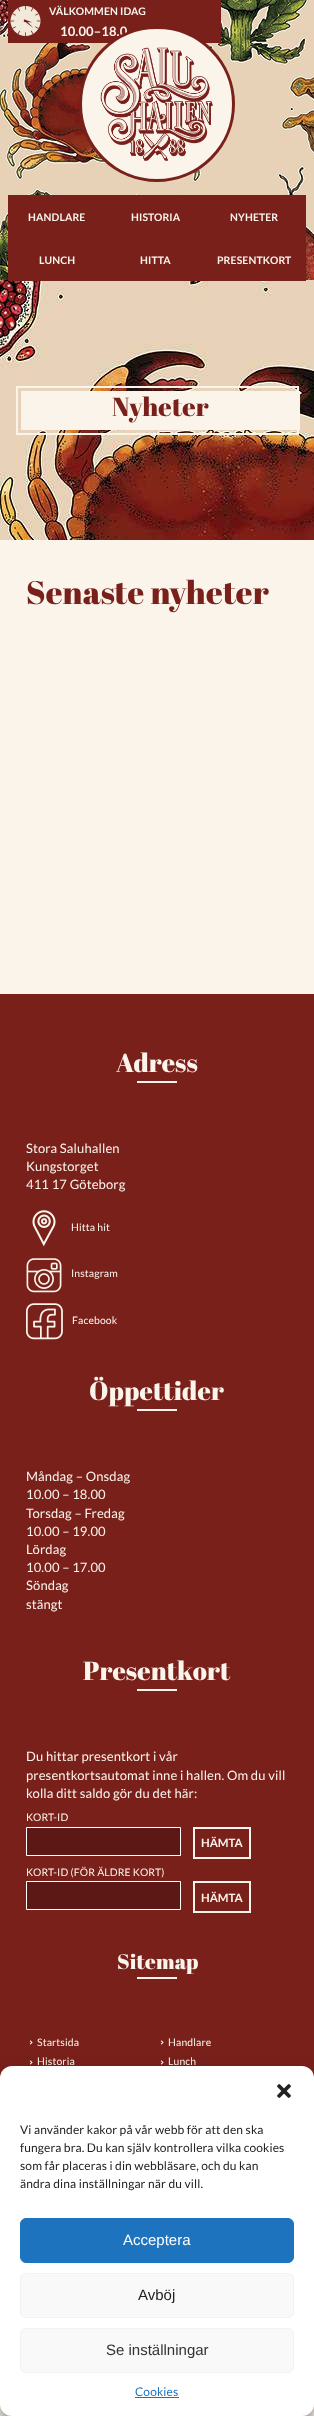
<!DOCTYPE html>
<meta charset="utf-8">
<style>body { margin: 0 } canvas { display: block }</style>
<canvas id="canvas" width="314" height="2416"></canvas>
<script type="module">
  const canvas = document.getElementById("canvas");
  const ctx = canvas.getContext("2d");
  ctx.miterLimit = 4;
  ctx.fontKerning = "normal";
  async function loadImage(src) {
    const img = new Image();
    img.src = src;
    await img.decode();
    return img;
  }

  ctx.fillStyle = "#faf4eb";
  ctx.fillRect(0, 0, 314, 2416);
  ctx.drawImage(await loadImage("img1.png"), 0, 0, 314, 280);
  ctx.drawImage(await loadImage("img4.png"), 0, 280, 314, 260);
  ctx.fillStyle = "#79201b";
  ctx.fillRect(8, 195, 298, 86);
  ctx.fillRect(8, 0, 213, 43);
  ctx.drawImage(await loadImage("img2.png"), 10, 6, 31, 30);
  ctx.letterSpacing = "0.13px";
  ctx.font = "bold 10.4px Lato";
  ctx.fillStyle = "#faf4eb";
  ctx.fillText("VÄLKOMMEN IDAG", 49, 15);
  ctx.font = "bold 13px Lato";
  ctx.fillText("10.00–18.0", 60, 36);
  ctx.beginPath();
  ctx.arc(157, 104, 76.5, 0, Math.PI * 2);
  ctx.fill();
  ctx.strokeStyle = "#79201b";
  ctx.lineWidth = 3;
  ctx.stroke();
  ctx.drawImage(await loadImage("img3.png"), 100, 47, 113, 114);
  ctx.font = "bold 10.4px Lato";
  ctx.fillText("HANDLARE", 28, 221);
  ctx.fillText("HISTORIA", 131, 221);
  ctx.fillText("NYHETER", 230, 221);
  ctx.fillText("LUNCH", 39, 264);
  ctx.fillText("HITTA", 140, 264);
  ctx.fillText("PRESENTKORT", 217, 264);
  ctx.strokeStyle = "#faf4eb";
  ctx.lineWidth = 2;
  ctx.strokeRect(17, 387, 281, 47);
  ctx.fillRect(21, 391, 279, 39);
  ctx.font = "26px Abril Fatface";
  ctx.fillStyle = "#79201b";
  ctx.fillText("Nyheter", 112, 416);
  ctx.font = "32.5px Abril Fatface";
  ctx.fillText("Senaste nyheter", 26, 604);
  ctx.fillRect(0, 994, 314, 1084);
  ctx.font = "26px Abril Fatface";
  ctx.fillStyle = "#faf4eb";
  ctx.fillText("Adress", 116, 1072);
  ctx.fillRect(137, 1081, 40, 2);
  ctx.font = "13px Lato";
  ctx.fillText("Stora Saluhallen", 26, 1153);
  ctx.fillText("Kungstorget", 26, 1171);
  ctx.fillText("411 17 Göteborg", 26, 1189);
  ctx.drawImage(await loadImage("img5.png"), 32, 1210, 24, 37);
  ctx.font = "10.4px Lato";
  ctx.fillText("Hitta hit", 71, 1231);
  ctx.drawImage(await loadImage("img6.png"), 26, 1258, 36, 35);
  ctx.fillText("Instagram", 71, 1277);
  ctx.drawImage(await loadImage("img7.png"), 26, 1303, 37, 37);
  ctx.fillText("Facebook", 72, 1324);
  ctx.font = "26px Abril Fatface";
  ctx.fillText("Öppettider", 89, 1400);
  ctx.fillRect(137, 1409, 40, 2);
  ctx.font = "13px Lato";
  ctx.fillText("Måndag – Onsdag", 26, 1481);
  ctx.fillText("10.00 – 18.00", 26, 1499);
  ctx.fillText("Torsdag – Fredag", 26, 1518);
  ctx.fillText("10.00 – 19.00", 26, 1536);
  ctx.fillText("Lördag", 26, 1554);
  ctx.fillText("10.00 – 17.00", 26, 1572);
  ctx.fillText("Söndag", 26, 1590);
  ctx.fillText("stängt", 26, 1609);
  ctx.font = "26px Abril Fatface";
  ctx.fillText("Presentkort", 83, 1680);
  ctx.fillRect(137, 1689, 40, 2);
  ctx.font = "13px Lato";
  ctx.fillText("Du hittar presentkort i vår", 26, 1761);
  ctx.fillText("presentkortsautomat inne i hallen. Om du vill", 26, 1780);
  ctx.fillText("kolla ditt saldo gör du det här:", 26, 1798);
  ctx.font = "10.4px Lato";
  ctx.fillText("KORT-ID", 26, 1821);
  ctx.fillStyle = "#5b1814";
  ctx.beginPath();
  ctx.rect(26.5, 1827.5, 154, 28);
  ctx.fill();
  ctx.strokeStyle = "#ffffff";
  ctx.lineWidth = 1;
  ctx.stroke();
  ctx.strokeStyle = "#faf4eb";
  ctx.lineWidth = 2;
  ctx.strokeRect(194, 1828, 56, 30);
  ctx.letterSpacing = "0px";
  ctx.font = "bold 11.5px Lato";
  ctx.fillStyle = "#faf4eb";
  ctx.fillText("HÄMTA", 201, 1847);
  ctx.letterSpacing = "0.13px";
  ctx.font = "10.4px Lato";
  ctx.fillText("KORT-ID (FÖR ÄLDRE KORT)", 26, 1876);
  ctx.fillStyle = "#5b1814";
  ctx.beginPath();
  ctx.rect(26.5, 1881.5, 154, 28);
  ctx.fill();
  ctx.strokeStyle = "#ffffff";
  ctx.lineWidth = 1;
  ctx.stroke();
  ctx.strokeStyle = "#faf4eb";
  ctx.lineWidth = 2;
  ctx.strokeRect(194, 1882, 56, 30);
  ctx.letterSpacing = "0px";
  ctx.font = "bold 11.5px Lato";
  ctx.fillStyle = "#faf4eb";
  ctx.fillText("HÄMTA", 201, 1902);
  ctx.letterSpacing = "0.13px";
  ctx.font = "21px Abril Fatface";
  ctx.fillText("Sitemap", 117, 1969);
  ctx.fillRect(137, 1977, 40, 2);
  ctx.drawImage(await loadImage("img8.png"), 29, 2040, 4, 5);
  ctx.font = "10.4px Lato";
  ctx.fillText("Startsida", 37, 2046);
  ctx.drawImage(await loadImage("img8.png"), 160, 2040, 4, 5);
  ctx.fillText("Handlare", 168, 2046);
  ctx.drawImage(await loadImage("img8.png"), 29, 2060, 4, 5);
  ctx.fillText("Historia", 37, 2065);
  ctx.drawImage(await loadImage("img8.png"), 160, 2060, 4, 5);
  ctx.fillText("Lunch", 168, 2065);
  ctx.fillStyle = "rgba(0, 0, 0, 0.23)";
  ctx.filter = "blur(3px)";
  ctx.beginPath();
  ctx.roundRect(0, 2072, 314, 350, 12);
  ctx.fill();
  ctx.filter = "none";
  ctx.fillStyle = "rgba(0, 0, 0, 0.19)";
  ctx.filter = "blur(10px)";
  ctx.beginPath();
  ctx.roundRect(0, 2076, 314, 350, 12);
  ctx.fill();
  ctx.filter = "none";
  ctx.fillStyle = "#ffffff";
  ctx.beginPath();
  ctx.roundRect(0, 2066, 314, 350, 12);
  ctx.fill();
  ctx.drawImage(await loadImage("img9.png"), 277, 2084, 14, 14);
  ctx.font = "12px Lato";
  ctx.fillStyle = "#222222";
  ctx.fillText("Vi använder kakor på vår webb för att den ska", 20, 2134);
  ctx.fillText("fungera bra. Du kan själv kontrollera vilka cookies", 20, 2152);
  ctx.fillText("som får placeras i din webbläsare, och du kan", 20, 2170);
  ctx.fillText("ändra dina inställningar när du vill.", 20, 2188);
  ctx.fillStyle = "#1e73be";
  ctx.beginPath();
  ctx.roundRect(20.5, 2218.5, 273, 44, 5.5);
  ctx.fill();
  ctx.strokeStyle = "#1e73be";
  ctx.lineWidth = 1;
  ctx.stroke();
  ctx.letterSpacing = "0px";
  ctx.font = "15px Liberation Sans";
  ctx.fillStyle = "#ffffff";
  ctx.fillText("Acceptera", 123, 2245);
  ctx.fillStyle = "#f9f9f9";
  ctx.beginPath();
  ctx.roundRect(20.5, 2273.5, 273, 44, 5.5);
  ctx.fill();
  ctx.strokeStyle = "#f2f2f2";
  ctx.stroke();
  ctx.fillStyle = "#222222";
  ctx.fillText("Avböj", 138, 2300);
  ctx.fillStyle = "#f9f9f9";
  ctx.beginPath();
  ctx.roundRect(20.5, 2328.5, 273, 44, 5.5);
  ctx.fill();
  ctx.stroke();
  ctx.fillStyle = "#333333";
  ctx.fillText("Se inställningar", 106, 2355);
  ctx.letterSpacing = "0.13px";
  ctx.font = "12px Lato";
  ctx.fillStyle = "#1e73be";
  ctx.fillText("Cookies", 135, 2396);
  ctx.fillRect(135, 2397, 44, 1);
</script>
